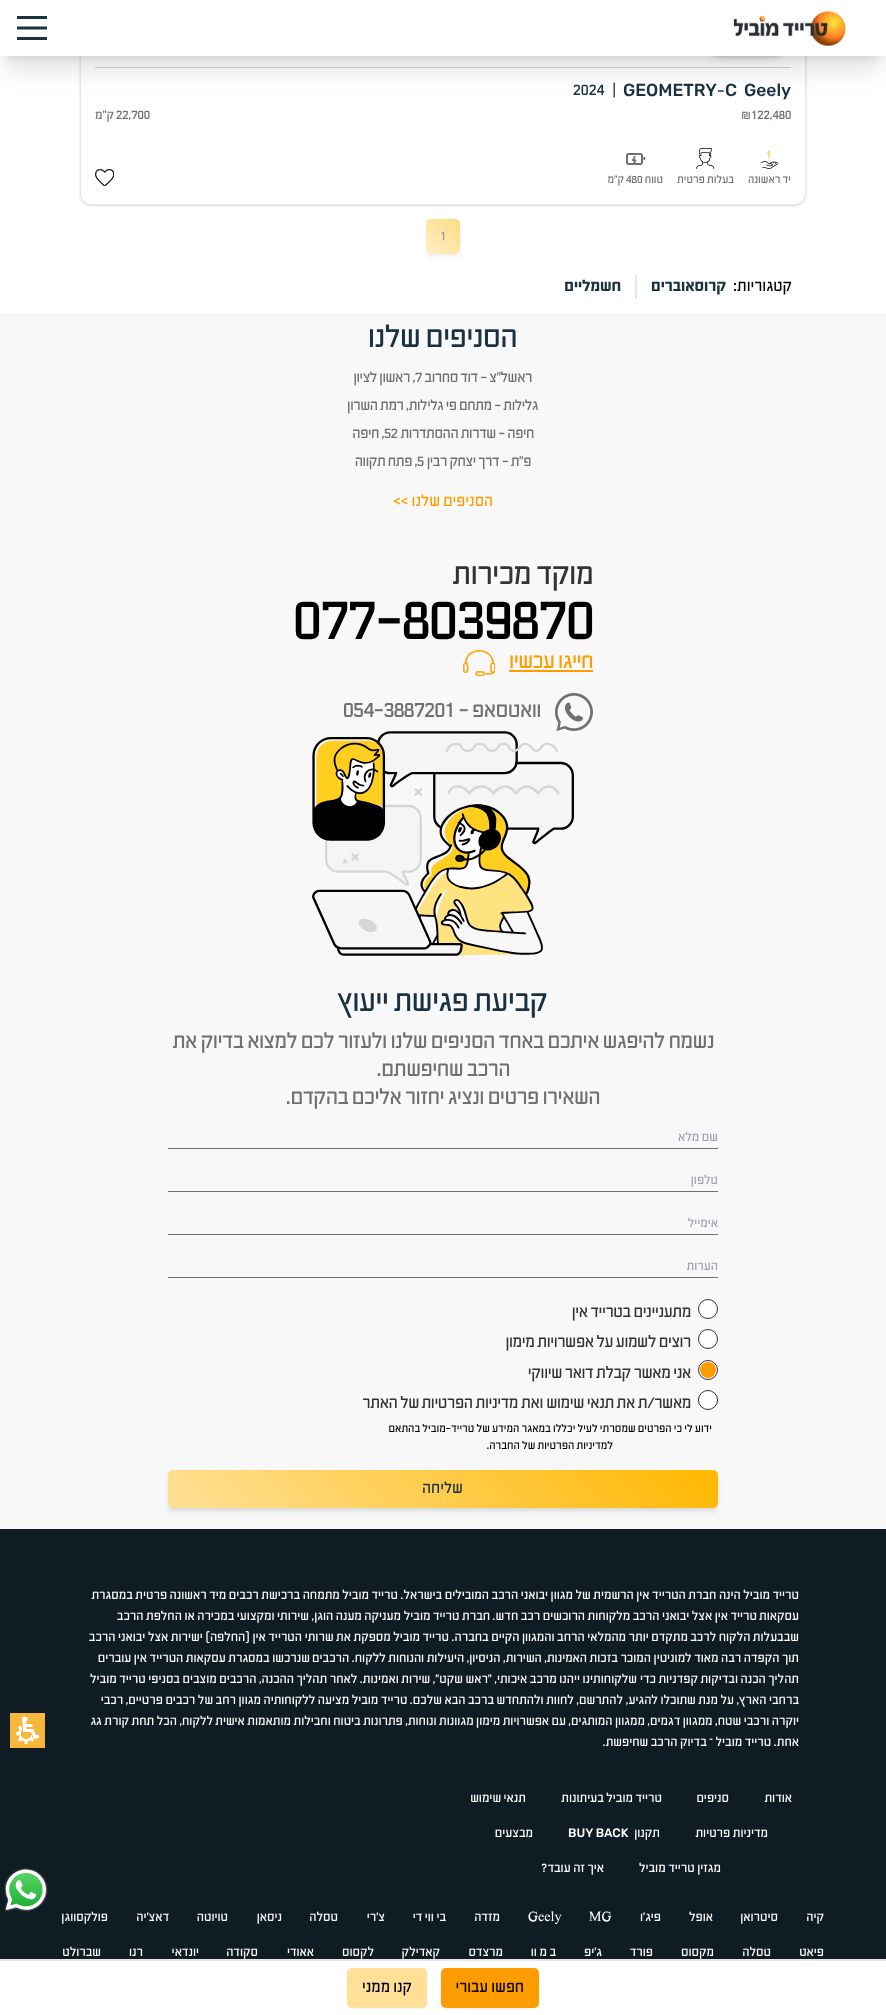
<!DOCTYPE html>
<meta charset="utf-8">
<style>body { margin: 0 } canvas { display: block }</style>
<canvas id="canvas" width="886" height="2015"></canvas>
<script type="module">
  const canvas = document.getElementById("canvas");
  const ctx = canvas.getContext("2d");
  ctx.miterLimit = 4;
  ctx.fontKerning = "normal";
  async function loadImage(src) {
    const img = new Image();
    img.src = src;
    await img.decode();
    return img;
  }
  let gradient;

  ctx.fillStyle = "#ffffff";
  ctx.fillRect(0, 0, 886, 2015);
  ctx.fillStyle = "rgba(0, 0, 0, 0.1)";
  ctx.filter = "blur(1px)";
  ctx.beginPath();
  ctx.roundRect(81, -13, 724, 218, 10);
  ctx.fill();
  ctx.filter = "none";
  ctx.filter = "blur(1.5px)";
  ctx.beginPath();
  ctx.roundRect(80, -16, 726, 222, 11);
  ctx.fill();
  ctx.filter = "none";
  ctx.fillStyle = "#ffffff";
  ctx.beginPath();
  ctx.roundRect(80.5, -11.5, 725, 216, 10.5);
  ctx.fill();
  ctx.strokeStyle = "#e5e7eb";
  ctx.stroke();
  ctx.fillStyle = "rgba(0, 0, 0, 0.1)";
  ctx.filter = "blur(2px)";
  ctx.beginPath();
  ctx.roundRect(711, 39, 71, 17, 8.5);
  ctx.fill();
  ctx.filter = "none";
  ctx.fillStyle = "#d5d5d5";
  ctx.fillRect(95, 67, 696, 1);
  ctx.fillStyle = "rgba(0, 0, 0, 0.1)";
  ctx.filter = "blur(3px)";
  ctx.beginPath();
  ctx.roundRect(710, 40, 73, 19, 9.5);
  ctx.fill();
  ctx.filter = "none";
  ctx.font = "500 17.5px Rubik";
  ctx.fillStyle = "#1a3142";
  ctx.fillText("Geely", 744, 96);
  ctx.fillText("C", 725, 96);
  ctx.font = "17.5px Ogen";
  ctx.fillText("-", 717, 96);
  ctx.font = "500 17.5px Rubik";
  ctx.fillText("GEOMETRY", 623, 96);
  ctx.font = "17.5px Ogen";
  ctx.fillText("|", 612, 95);
  ctx.fillText("2024", 573, 95);
  ctx.font = "14px Ogen";
  ctx.fillStyle = "#707070";
  ctx.fillText("₪122,480", 741, 119);
  ctx.fillText("22,700", 116, 119);
  ctx.direction = "rtl";
  ctx.fillText("ק\"מ", 114, 119);
  ctx.drawImage(await loadImage("img1.png"), 761, 161, 17, 8);
  ctx.direction = "ltr";
  ctx.font = "12px Ogen";
  ctx.fillStyle = "#ffc625";
  ctx.fillText("1", 766, 158);
  ctx.direction = "rtl";
  ctx.font = "12.25px Ogen";
  ctx.fillStyle = "#707070";
  ctx.fillText("יד ראשונה", 791, 183);
  ctx.drawImage(await loadImage("img2.png"), 696, 148, 19, 21);
  ctx.fillText("בעלות פרטית", 734, 183);
  ctx.drawImage(await loadImage("img3.png"), 626, 153, 20, 12);
  ctx.fillText("טווח", 663, 183);
  ctx.direction = "ltr";
  ctx.fillText("480", 626, 183);
  ctx.direction = "rtl";
  ctx.fillText("ק״מ", 624, 183);
  ctx.drawImage(await loadImage("img4.png"), 95, 169, 19, 17);
  ctx.fillStyle = "rgba(128, 128, 128, 0.1)";
  ctx.filter = "blur(2px)";
  ctx.beginPath();
  ctx.roundRect(428, 223, 30, 31, 3);
  ctx.fill();
  ctx.filter = "none";
  ctx.filter = "blur(3px)";
  ctx.beginPath();
  ctx.roundRect(427, 224, 32, 33, 4);
  ctx.fill();
  ctx.filter = "none";
  gradient = ctx.createLinearGradient(460, 219, 426, 254);
  gradient.addColorStop(0, "#ffdb80");
  gradient.addColorStop(1, "#fff0cb");
  ctx.fillStyle = gradient;
  ctx.beginPath();
  ctx.roundRect(426, 219, 34, 35, 5);
  ctx.fill();
  ctx.direction = "ltr";
  ctx.font = "14px Ogen";
  ctx.fillStyle = "#8d98a1";
  ctx.fillText("1", 440, 240);
  ctx.direction = "rtl";
  ctx.font = "17.5px Ogen";
  ctx.fillStyle = "#000000";
  ctx.fillText("קטגוריות:", 792, 291);
  ctx.font = "bold 17.5px Ogen";
  ctx.fillStyle = "#1a3142";
  ctx.fillText("קרוסאוברים", 726, 291);
  ctx.fillStyle = "#e5e7eb";
  ctx.fillRect(635, 275, 2, 24);
  ctx.fillStyle = "#1a3142";
  ctx.fillText("חשמליים", 621, 291);
  ctx.fillStyle = "#f8f8f8";
  ctx.fillRect(0, 313, 886, 1216);
  ctx.letterSpacing = "-0.75px";
  ctx.font = "34px Ogen";
  ctx.fillStyle = "#1a3142";
  ctx.fillText("הסניפים שלנו", 517, 347);
  ctx.letterSpacing = "-0.4px";
  ctx.font = "16px Ogen";
  ctx.fillStyle = "#707070";
  ctx.fillText("ראשל״צ - דוד סחרוב", 532, 382);
  ctx.direction = "ltr";
  ctx.fillText("7", 415, 382);
  ctx.direction = "rtl";
  ctx.fillText(", ראשון לציון", 415, 382);
  ctx.fillText("גלילות - מתחם פי גלילות, רמת השרון", 538, 410);
  ctx.fillText("חיפה - שדרות ההסתדרות", 534, 438);
  ctx.direction = "ltr";
  ctx.fillText("52", 384, 438);
  ctx.direction = "rtl";
  ctx.fillText(", חיפה", 384, 438);
  ctx.fillText("פ״ת - דרך יצחק רבין", 531, 466);
  ctx.direction = "ltr";
  ctx.fillText("5", 417, 466);
  ctx.direction = "rtl";
  ctx.fillText(", פתח תקווה", 417, 466);
  ctx.letterSpacing = "0px";
  ctx.font = "17.5px Ogen";
  ctx.fillStyle = "#ff9d00";
  ctx.fillText("הסניפים שלנו >>", 493, 506);
  ctx.letterSpacing = "-0.75px";
  ctx.font = "34px Ogen";
  ctx.fillStyle = "#333333";
  ctx.fillText("מוקד מכירות", 593, 584);
  ctx.letterSpacing = "-1.4px";
  ctx.direction = "ltr";
  ctx.font = "64px Ogen";
  ctx.fillStyle = "#000000";
  ctx.fillText("077-8039870", 293, 639);
  ctx.letterSpacing = "-0.6px";
  ctx.direction = "rtl";
  ctx.font = "24px Ogen";
  ctx.fillStyle = "#ff9d00";
  ctx.fillText("חייגו עכשיו", 593, 668);
  ctx.fillRect(509, 670, 84, 2);
  ctx.drawImage(await loadImage("img5.png"), 463, 650, 32, 26);
  ctx.drawImage(await loadImage("img6.png"), 555, 693, 38, 38);
  ctx.fillStyle = "#707070";
  ctx.fillText("וואטסאפ -", 541, 717);
  ctx.direction = "ltr";
  ctx.fillText("054-3887201", 343, 717);
  ctx.drawImage(await loadImage("img7.png"), 312, 731, 262, 225);
  ctx.letterSpacing = "-0.75px";
  ctx.direction = "rtl";
  ctx.font = "34px Ogen";
  ctx.fillStyle = "#1a3142";
  ctx.fillText("קביעת פגישת ייעוץ", 547, 1011);
  ctx.letterSpacing = "-0.6px";
  ctx.font = "24px Ogen";
  ctx.fillStyle = "#707070";
  ctx.fillText("נשמח להיפגש איתכם באחד הסניפים שלנו ולעזור לכם למצוא בדיוק את", 714, 1048);
  ctx.fillText("הרכב", 510, 1076);
  ctx.fillText("שחיפשתם.", 463, 1076);
  ctx.fillText("השאירו פרטים ונציג יחזור אליכם בהקדם.", 600, 1104);
  ctx.fillRect(168, 1148, 550, 1);
  ctx.letterSpacing = "0px";
  ctx.font = "14px Ogen";
  ctx.fillStyle = "#9ca3af";
  ctx.fillText("שם מלא", 718, 1141);
  ctx.fillStyle = "#707070";
  ctx.fillRect(168, 1191, 550, 1);
  ctx.fillStyle = "#9ca3af";
  ctx.fillText("טלפון", 718, 1184);
  ctx.fillStyle = "#707070";
  ctx.fillRect(168, 1234, 550, 1);
  ctx.fillStyle = "#9ca3af";
  ctx.fillText("אימייל", 718, 1227);
  ctx.fillStyle = "#707070";
  ctx.fillRect(168, 1277, 550, 1);
  ctx.fillStyle = "#9ca3af";
  ctx.fillText("הערות", 718, 1270);
  ctx.fillStyle = "#ffffff";
  ctx.beginPath();
  ctx.arc(708, 1309, 9.5, 0, Math.PI * 2);
  ctx.fill();
  ctx.strokeStyle = "#333333";
  ctx.stroke();
  ctx.letterSpacing = "-0.4px";
  ctx.font = "18px Ogen";
  ctx.fillStyle = "#333333";
  ctx.fillText("מתעניינים בטרייד אין", 691, 1317);
  ctx.fillStyle = "#ffffff";
  ctx.beginPath();
  ctx.arc(708, 1339, 9.5, 0, Math.PI * 2);
  ctx.fill();
  ctx.stroke();
  ctx.fillStyle = "#333333";
  ctx.fillText("רוצים לשמוע על אפשרויות מימון", 691, 1347);
  ctx.fillStyle = "#ffffff";
  ctx.beginPath();
  ctx.arc(708, 1370, 9.5, 0, Math.PI * 2);
  ctx.fill();
  ctx.stroke();
  ctx.fillStyle = "#ff9d00";
  ctx.beginPath();
  ctx.arc(708, 1370, 8, 0, Math.PI * 2);
  ctx.fill();
  ctx.fillStyle = "#333333";
  ctx.fillText("אני מאשר קבלת דואר שיווקי", 691, 1378);
  ctx.fillStyle = "#ffffff";
  ctx.beginPath();
  ctx.arc(708, 1400, 9.5, 0, Math.PI * 2);
  ctx.fill();
  ctx.stroke();
  ctx.fillStyle = "#333333";
  ctx.fillText("מאשר/ת את", 691, 1408);
  ctx.fillText("תנאי שימוש", 614, 1408);
  ctx.fillText("ואת", 543, 1408);
  ctx.fillText("מדיניות הפרטיות", 518, 1408);
  ctx.fillText("של האתר", 419, 1408);
  ctx.letterSpacing = "0px";
  ctx.font = "12.25px Ogen";
  ctx.fillStyle = "#000000";
  ctx.fillText("ידוע לי כי הפרטים שמסרתי לעיל יכללו במאגר המידע של טרייד-מוביל בהתאם", 712, 1432);
  ctx.fillText("למדיניות הפרטיות של החברה.", 613, 1449);
  ctx.fillStyle = "rgba(0, 0, 0, 0.1)";
  ctx.filter = "blur(2px)";
  ctx.beginPath();
  ctx.roundRect(170, 1474, 546, 34, 3);
  ctx.fill();
  ctx.filter = "none";
  ctx.filter = "blur(3px)";
  ctx.beginPath();
  ctx.roundRect(169, 1475, 548, 36, 4);
  ctx.fill();
  ctx.filter = "none";
  gradient = ctx.createLinearGradient(590, 1342, 296, 1636);
  gradient.addColorStop(0, "#ffb700");
  gradient.addColorStop(1, "#ffe096");
  ctx.fillStyle = gradient;
  ctx.beginPath();
  ctx.roundRect(168, 1470, 550, 38, 5);
  ctx.fill();
  ctx.font = "17.5px Ogen";
  ctx.fillStyle = "#1a3142";
  ctx.fillText("שליחה", 463, 1493);
  ctx.fillStyle = "#101c24";
  ctx.fillRect(0, 1529, 886, 430);
  ctx.font = "14px Ogen";
  ctx.fillStyle = "#ffffff";
  ctx.fillText("טרייד מוביל הינה חברת הטרייד אין הרשמית של מגוון יבואני הרכב המובילים", 799, 1599);
  ctx.fillText("בישראל. טרייד מוביל מתמחה ברכישת רכבים מיד ראשונה פרטית במסגרת", 442, 1599);
  ctx.fillText("עסקאות", 799, 1620);
  ctx.fillText("טרייד אין אצל יבואני הרכב מלקוחות הרוכשים רכב חדש. חברת טרייד מוביל", 757, 1620);
  ctx.fillText("מעניקה מענה הוגן, שירותי ומקצועי במכירה או החלפת הרכב", 401, 1620);
  ctx.fillText("שבבעלות הלקוח לרכב", 799, 1641);
  ctx.fillText("מתקדם יותר מהמלאי הרחב והמגוון הקיים בחברה. טרייד מוביל מספקת את שרותי", 688, 1641);
  ctx.fillText("הטרייד אין (החלפה) ישירות אצל יבואני הרכב", 302, 1641);
  ctx.fillText("תוך הקפדה רבה מאוד למוניטין", 799, 1662);
  ctx.fillText("המוכר בזכות האמינות, השירות, הניסיון, היעילות והנוחות ללקוח. הרכבים", 651, 1662);
  ctx.fillText("שנרכשו במסגרת עסקאות הטרייד אין עוברים", 310, 1662);
  ctx.fillText("תהליך הכנה ובדיקות קפדניות כדי", 799, 1683);
  ctx.fillText("שלקוחותינו ייהנו מרכב איכותי, \"ראש שקט\", שירות ואמינות. לאחר תהליך", 637, 1683);
  ctx.fillText("ההכנה, הרכבים מוצבים בסניפי טרייד מוביל", 294, 1683);
  ctx.fillText("ברחבי הארץ, על מנת שתוכלו להגיע,", 799, 1704);
  ctx.fillText("להתרשם, לחוות ולהתחדש ברכב הבא שלכם. טרייד מוביל מציעה ללקוחותיה מגוון", 623, 1704);
  ctx.fillText("רחב של רכבים פרטיים, רכבי", 236, 1704);
  ctx.fillText("יוקרה ורכבי שטח, ממגוון דגמים, ממגוון המותגים,", 799, 1725);
  ctx.fillText("עם אפשרויות מימון מגוונות ונוחות, פתרונות ביטוח וחבילות מותאמות אישית", 566, 1725);
  ctx.fillText("ללקוח, הכל תחת קורת גג", 213, 1725);
  ctx.fillText("אחת. טרייד מוביל – בדיוק הרכב שחיפשת.", 799, 1746);
  ctx.fillText("אודות", 792, 1802);
  ctx.fillText("סניפים", 729, 1802);
  ctx.fillText("טרייד מוביל בעיתונות", 662, 1802);
  ctx.fillText("תנאי שימוש", 526, 1802);
  ctx.fillText("מדיניות פרטיות", 768, 1837);
  ctx.fillText("תקנון", 660, 1837);
  ctx.direction = "ltr";
  ctx.font = "500 12.25px Rubik";
  ctx.fillText("BUY BACK", 568, 1837);
  ctx.direction = "rtl";
  ctx.font = "14px Ogen";
  ctx.fillText("מבצעים", 533, 1837);
  ctx.fillText("מגזין טרייד מוביל", 721, 1872);
  ctx.fillText("איך זה עובד?", 604, 1872);
  ctx.fillText("קיה", 824, 1921);
  ctx.fillText("סיטרואן", 778, 1921);
  ctx.fillText("אופל", 713, 1921);
  ctx.fillText("פיג'ו", 661, 1921);
  ctx.direction = "ltr";
  ctx.fillText("MG", 589, 1921);
  ctx.fillText("Geely", 528, 1921);
  ctx.direction = "rtl";
  ctx.fillText("מזדה", 500, 1921);
  ctx.fillText("בי ווי די", 446, 1921);
  ctx.fillText("צ'רי", 385, 1921);
  ctx.fillText("טסלה", 338, 1921);
  ctx.fillText("ניסאן", 282, 1921);
  ctx.fillText("טויוטה", 228, 1921);
  ctx.fillText("דאצ'יה", 169, 1921);
  ctx.fillText("פולקסווגן", 108, 1921);
  ctx.fillText("פיאט", 824, 1956);
  ctx.fillText("טסלה", 771, 1956);
  ctx.fillText("מקסוס", 714, 1956);
  ctx.fillText("פורד", 653, 1956);
  ctx.fillText("ג'יפ", 602, 1956);
  ctx.fillText("ב מ וו", 556, 1956);
  ctx.fillText("מרצדס", 503, 1956);
  ctx.fillText("קאדילק", 440, 1956);
  ctx.fillText("לקסוס", 374, 1956);
  ctx.fillText("אאודי", 314, 1956);
  ctx.fillText("סקודה", 258, 1956);
  ctx.fillText("יונדאי", 199, 1956);
  ctx.fillText("רנו", 143, 1956);
  ctx.fillText("שברולט", 101, 1956);
  ctx.drawImage(await loadImage("img8.png"), 4, 1868, 44, 44);
  ctx.fillStyle = "rgba(0, 0, 0, 0.1)";
  ctx.filter = "blur(5px)";
  ctx.beginPath();
  ctx.rect(6, 14, 874, 44);
  ctx.fill();
  ctx.filter = "none";
  ctx.filter = "blur(12.5px)";
  ctx.beginPath();
  ctx.rect(5, 25, 876, 46);
  ctx.fill();
  ctx.filter = "none";
  ctx.fillStyle = "#ffffff";
  ctx.fillRect(0, 0, 886, 56);
  ctx.drawImage(await loadImage("img9.png"), 733, 10, 113, 36);
  ctx.fillStyle = "#1a3142";
  ctx.fillRect(17, 16, 30, 3);
  ctx.beginPath();
  ctx.moveTo(17, 28);
  ctx.lineTo(47, 28);
  ctx.strokeStyle = "#1a3142";
  ctx.lineWidth = 3;
  ctx.stroke();
  ctx.fillRect(17, 37, 30, 3);
  ctx.fillStyle = "#e5e7eb";
  ctx.fillRect(0, 1959, 886, 2);
  ctx.fillStyle = "rgba(0, 0, 0, 0.05)";
  ctx.filter = "blur(1px)";
  ctx.beginPath();
  ctx.roundRect(441, 1969, 98, 40, 5);
  ctx.fill();
  ctx.filter = "none";
  ctx.fillStyle = "#ff9d00";
  ctx.beginPath();
  ctx.roundRect(441, 1968, 98, 40, 5);
  ctx.fill();
  ctx.font = "17.5px Ogen";
  ctx.fillStyle = "#000000";
  ctx.fillText("חפשו עבורי", 524, 1992);
  ctx.fillStyle = "rgba(0, 0, 0, 0.05)";
  ctx.filter = "blur(1px)";
  ctx.beginPath();
  ctx.roundRect(347, 1969, 80, 40, 5);
  ctx.fill();
  ctx.filter = "none";
  ctx.fillStyle = "#ffe096";
  ctx.beginPath();
  ctx.roundRect(347, 1968, 80, 40, 5);
  ctx.fill();
  ctx.fillStyle = "#000000";
  ctx.fillText("קנו ממני", 412, 1992);
  ctx.fillStyle = "#f6b73c";
  ctx.fillRect(10, 1713, 35, 35);
  ctx.drawImage(await loadImage("img10.png"), 16, 1716, 24, 28);
</script>
